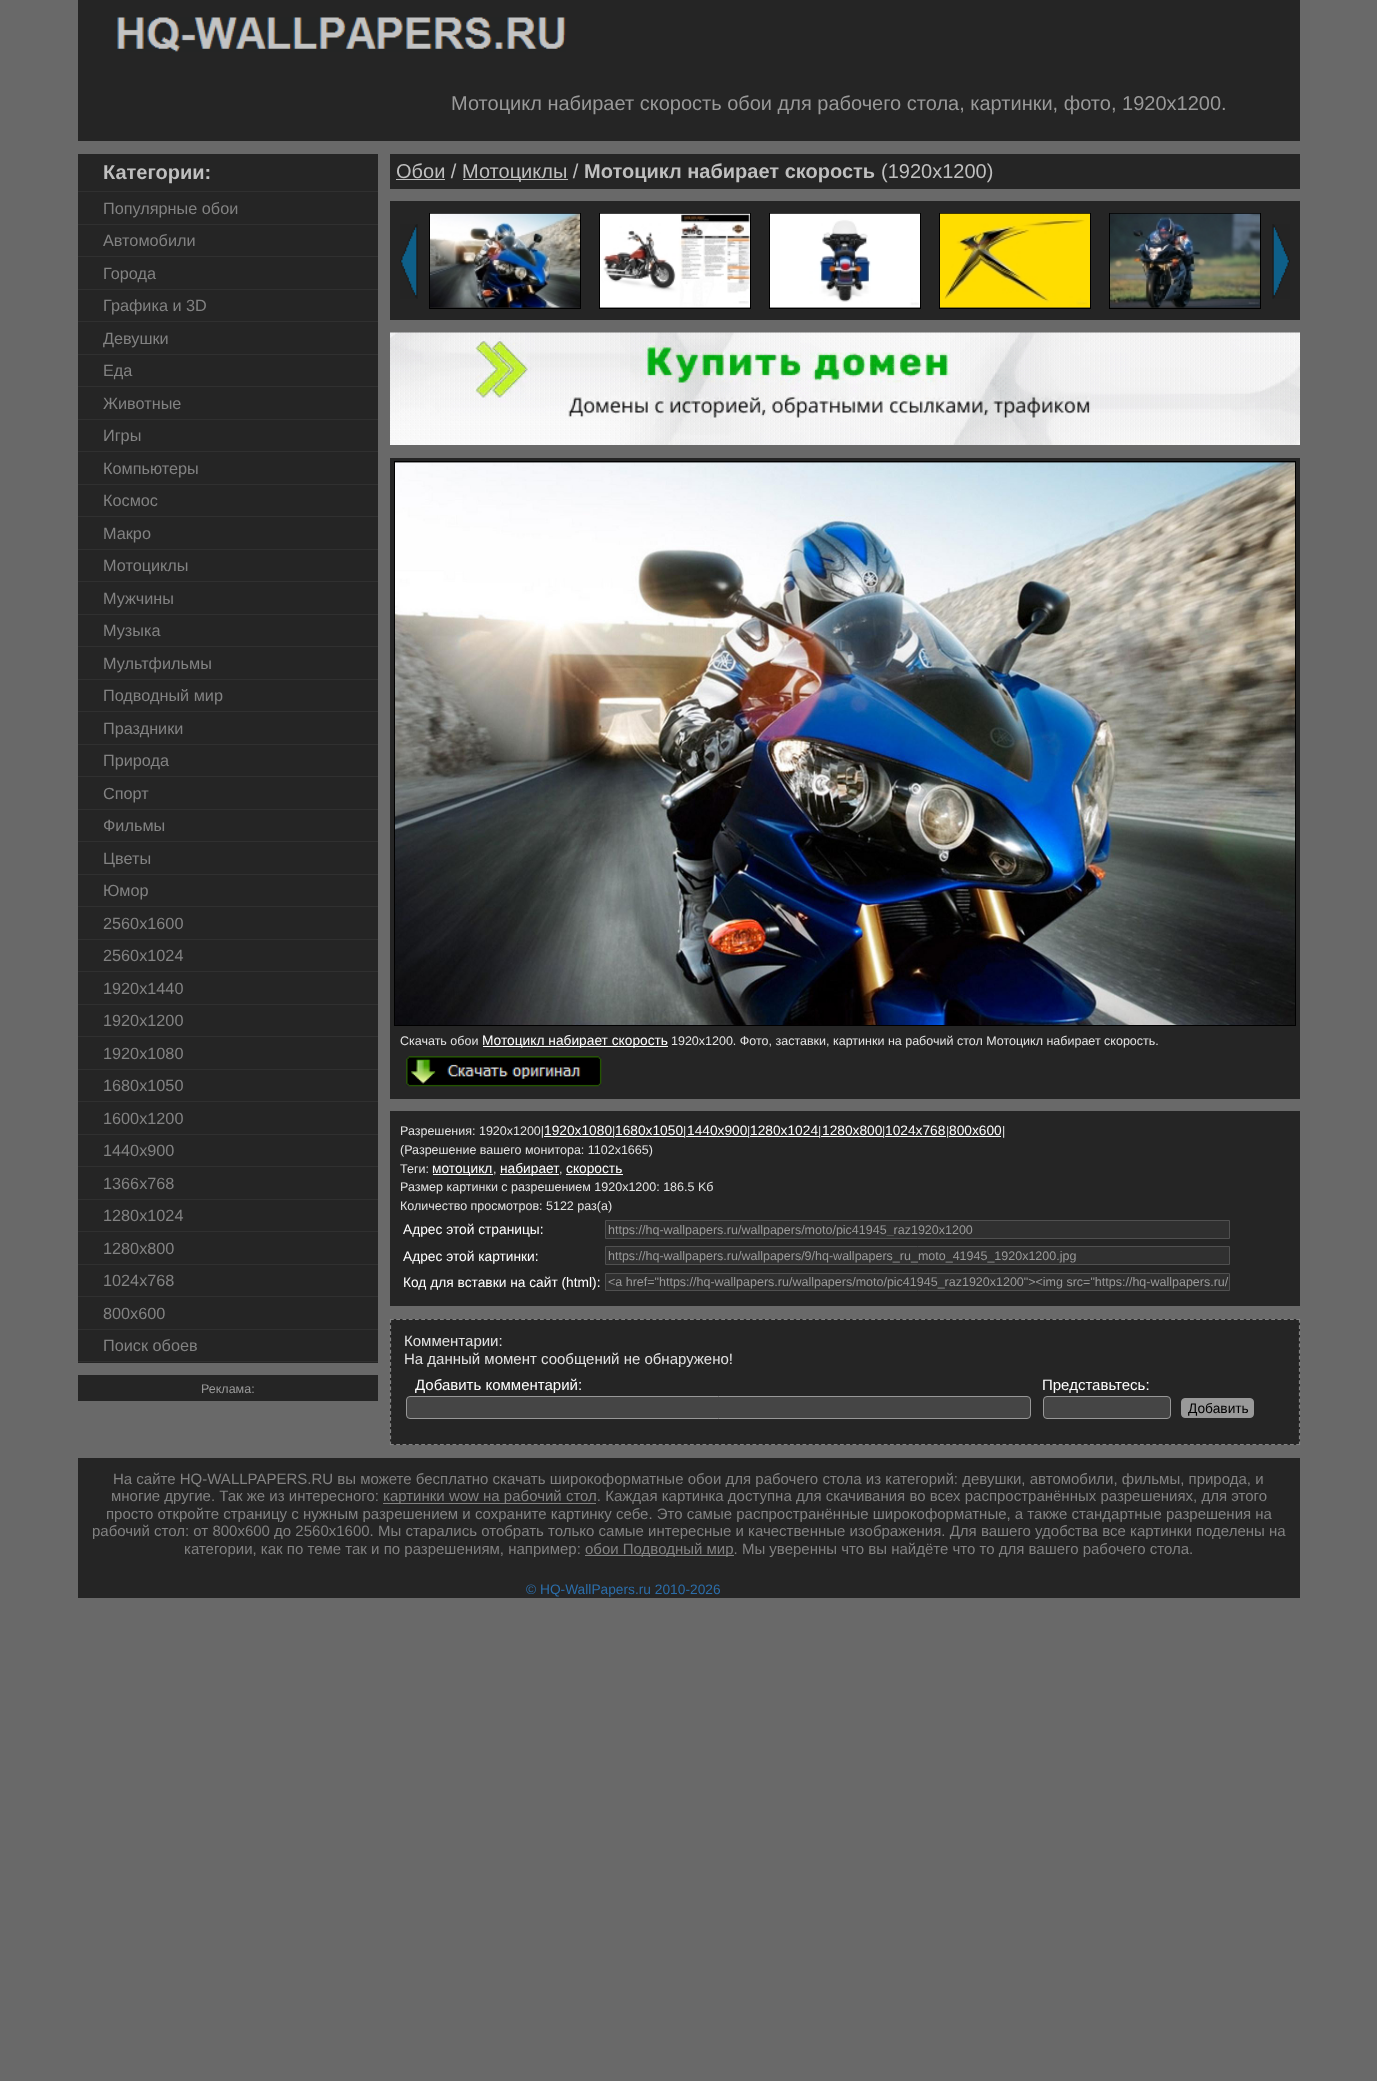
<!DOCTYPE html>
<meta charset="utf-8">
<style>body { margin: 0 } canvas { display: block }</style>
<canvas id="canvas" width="1377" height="2081"></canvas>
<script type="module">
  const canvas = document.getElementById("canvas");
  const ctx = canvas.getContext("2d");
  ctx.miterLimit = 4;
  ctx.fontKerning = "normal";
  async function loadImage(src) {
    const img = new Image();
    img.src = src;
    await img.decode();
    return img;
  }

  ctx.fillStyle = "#696969";
  ctx.fillRect(0, 0, 1377, 2081);
  ctx.fillStyle = "#252525";
  ctx.fillRect(78, 0, 1222, 66);
  ctx.drawImage(await loadImage("img1.png"), 117, 17, 449, 35);
  ctx.fillRect(78, 66, 1222, 75);
  ctx.font = "20px Liberation Sans";
  ctx.fillStyle = "#999999";
  ctx.fillText("Мотоцикл набирает скорость обои для рабочего стола, картинки, фото, 1920x1200.", 451, 110);
  ctx.fillStyle = "#252525";
  ctx.fillRect(78, 154, 300, 70);
  ctx.fillStyle = "#303030";
  ctx.fillRect(78, 191, 300, 1);
  ctx.font = "bold 20px Liberation Sans";
  ctx.fillStyle = "#bfbfbf";
  ctx.fillText("Категории:", 103, 179);
  ctx.fillStyle = "#303030";
  ctx.fillRect(78, 224, 300, 1);
  ctx.font = "16.25px Liberation Sans";
  ctx.fillStyle = "#828282";
  ctx.fillText("Популярные обои", 103, 214);
  ctx.fillStyle = "#252525";
  ctx.fillRect(78, 225, 300, 64);
  ctx.fillStyle = "#303030";
  ctx.fillRect(78, 256, 300, 1);
  ctx.fillStyle = "#828282";
  ctx.fillText("Автомобили", 103, 246);
  ctx.fillStyle = "#303030";
  ctx.fillRect(78, 289, 300, 1);
  ctx.fillStyle = "#828282";
  ctx.fillText("Города", 103, 279);
  ctx.fillStyle = "#252525";
  ctx.fillRect(78, 290, 300, 64);
  ctx.fillStyle = "#303030";
  ctx.fillRect(78, 321, 300, 1);
  ctx.fillStyle = "#828282";
  ctx.fillText("Графика и 3D", 103, 311);
  ctx.fillStyle = "#303030";
  ctx.fillRect(78, 354, 300, 1);
  ctx.fillStyle = "#828282";
  ctx.fillText("Девушки", 103, 344);
  ctx.fillStyle = "#252525";
  ctx.fillRect(78, 355, 300, 64);
  ctx.fillStyle = "#303030";
  ctx.fillRect(78, 386, 300, 1);
  ctx.fillStyle = "#828282";
  ctx.fillText("Еда", 103, 376);
  ctx.fillStyle = "#303030";
  ctx.fillRect(78, 419, 300, 1);
  ctx.fillStyle = "#828282";
  ctx.fillText("Животные", 103, 409);
  ctx.fillStyle = "#252525";
  ctx.fillRect(78, 420, 300, 64);
  ctx.fillStyle = "#303030";
  ctx.fillRect(78, 451, 300, 1);
  ctx.fillStyle = "#828282";
  ctx.fillText("Игры", 103, 441);
  ctx.fillStyle = "#303030";
  ctx.fillRect(78, 484, 300, 1);
  ctx.fillStyle = "#828282";
  ctx.fillText("Компьютеры", 103, 474);
  ctx.fillStyle = "#252525";
  ctx.fillRect(78, 485, 300, 64);
  ctx.fillStyle = "#303030";
  ctx.fillRect(78, 516, 300, 1);
  ctx.fillStyle = "#828282";
  ctx.fillText("Космос", 103, 506);
  ctx.fillStyle = "#303030";
  ctx.fillRect(78, 549, 300, 1);
  ctx.fillStyle = "#828282";
  ctx.fillText("Макро", 103, 539);
  ctx.fillStyle = "#252525";
  ctx.fillRect(78, 550, 300, 64);
  ctx.fillStyle = "#303030";
  ctx.fillRect(78, 581, 300, 1);
  ctx.fillStyle = "#828282";
  ctx.fillText("Мотоциклы", 103, 571);
  ctx.fillStyle = "#303030";
  ctx.fillRect(78, 614, 300, 1);
  ctx.fillStyle = "#828282";
  ctx.fillText("Мужчины", 103, 604);
  ctx.fillStyle = "#252525";
  ctx.fillRect(78, 615, 300, 64);
  ctx.fillStyle = "#303030";
  ctx.fillRect(78, 646, 300, 1);
  ctx.fillStyle = "#828282";
  ctx.fillText("Музыка", 103, 636);
  ctx.fillStyle = "#303030";
  ctx.fillRect(78, 679, 300, 1);
  ctx.fillStyle = "#828282";
  ctx.fillText("Мультфильмы", 103, 669);
  ctx.fillStyle = "#252525";
  ctx.fillRect(78, 680, 300, 64);
  ctx.fillStyle = "#303030";
  ctx.fillRect(78, 711, 300, 1);
  ctx.fillStyle = "#828282";
  ctx.fillText("Подводный мир", 103, 701);
  ctx.fillStyle = "#303030";
  ctx.fillRect(78, 744, 300, 1);
  ctx.fillStyle = "#828282";
  ctx.fillText("Праздники", 103, 734);
  ctx.fillStyle = "#252525";
  ctx.fillRect(78, 745, 300, 64);
  ctx.fillStyle = "#303030";
  ctx.fillRect(78, 776, 300, 1);
  ctx.fillStyle = "#828282";
  ctx.fillText("Природа", 103, 766);
  ctx.fillStyle = "#303030";
  ctx.fillRect(78, 809, 300, 1);
  ctx.fillStyle = "#828282";
  ctx.fillText("Спорт", 103, 799);
  ctx.fillStyle = "#252525";
  ctx.fillRect(78, 810, 300, 64);
  ctx.fillStyle = "#303030";
  ctx.fillRect(78, 841, 300, 1);
  ctx.fillStyle = "#828282";
  ctx.fillText("Фильмы", 103, 831);
  ctx.fillStyle = "#303030";
  ctx.fillRect(78, 874, 300, 1);
  ctx.fillStyle = "#828282";
  ctx.fillText("Цветы", 103, 864);
  ctx.fillStyle = "#252525";
  ctx.fillRect(78, 875, 300, 64);
  ctx.fillStyle = "#303030";
  ctx.fillRect(78, 906, 300, 1);
  ctx.fillStyle = "#828282";
  ctx.fillText("Юмор", 103, 896);
  ctx.fillStyle = "#303030";
  ctx.fillRect(78, 939, 300, 1);
  ctx.fillStyle = "#828282";
  ctx.fillText("2560x1600", 103, 929);
  ctx.fillStyle = "#252525";
  ctx.fillRect(78, 940, 300, 64);
  ctx.fillStyle = "#303030";
  ctx.fillRect(78, 971, 300, 1);
  ctx.fillStyle = "#828282";
  ctx.fillText("2560x1024", 103, 961);
  ctx.fillStyle = "#303030";
  ctx.fillRect(78, 1004, 300, 1);
  ctx.fillStyle = "#828282";
  ctx.fillText("1920x1440", 103, 994);
  ctx.fillStyle = "#252525";
  ctx.fillRect(78, 1005, 300, 64);
  ctx.fillStyle = "#303030";
  ctx.fillRect(78, 1036, 300, 1);
  ctx.fillStyle = "#828282";
  ctx.fillText("1920x1200", 103, 1026);
  ctx.fillStyle = "#303030";
  ctx.fillRect(78, 1069, 300, 1);
  ctx.fillStyle = "#828282";
  ctx.fillText("1920x1080", 103, 1059);
  ctx.fillStyle = "#252525";
  ctx.fillRect(78, 1070, 300, 64);
  ctx.fillStyle = "#303030";
  ctx.fillRect(78, 1101, 300, 1);
  ctx.fillStyle = "#828282";
  ctx.fillText("1680x1050", 103, 1091);
  ctx.fillStyle = "#303030";
  ctx.fillRect(78, 1134, 300, 1);
  ctx.fillStyle = "#828282";
  ctx.fillText("1600x1200", 103, 1124);
  ctx.fillStyle = "#252525";
  ctx.fillRect(78, 1135, 300, 64);
  ctx.fillStyle = "#303030";
  ctx.fillRect(78, 1166, 300, 1);
  ctx.fillStyle = "#828282";
  ctx.fillText("1440x900", 103, 1156);
  ctx.fillStyle = "#303030";
  ctx.fillRect(78, 1199, 300, 1);
  ctx.fillStyle = "#828282";
  ctx.fillText("1366x768", 103, 1189);
  ctx.fillStyle = "#252525";
  ctx.fillRect(78, 1200, 300, 64);
  ctx.fillStyle = "#303030";
  ctx.fillRect(78, 1231, 300, 1);
  ctx.fillStyle = "#828282";
  ctx.fillText("1280x1024", 103, 1221);
  ctx.fillStyle = "#303030";
  ctx.fillRect(78, 1264, 300, 1);
  ctx.fillStyle = "#828282";
  ctx.fillText("1280x800", 103, 1254);
  ctx.fillStyle = "#252525";
  ctx.fillRect(78, 1265, 300, 64);
  ctx.fillStyle = "#303030";
  ctx.fillRect(78, 1296, 300, 1);
  ctx.fillStyle = "#828282";
  ctx.fillText("1024x768", 103, 1286);
  ctx.fillStyle = "#303030";
  ctx.fillRect(78, 1329, 300, 1);
  ctx.fillStyle = "#828282";
  ctx.fillText("800x600", 103, 1319);
  ctx.fillStyle = "#252525";
  ctx.fillRect(78, 1330, 300, 33);
  ctx.fillStyle = "#303030";
  ctx.fillRect(78, 1361, 300, 1);
  ctx.fillStyle = "#828282";
  ctx.fillText("Поиск обоев", 103, 1351);
  ctx.fillStyle = "#252525";
  ctx.fillRect(78, 1375, 300, 26);
  ctx.font = "12.5px Liberation Sans";
  ctx.fillStyle = "#999999";
  ctx.fillText("Реклама:", 201, 1393);
  ctx.fillStyle = "#252525";
  ctx.fillRect(390, 154, 910, 35);
  ctx.font = "20px Liberation Sans";
  ctx.fillStyle = "#bfbfbf";
  ctx.fillText("Обои /", 396, 178);
  ctx.fillRect(396, 179, 49, 1);
  ctx.fillRect(463, 179, 105, 1);
  ctx.fillText("Мотоциклы /", 462, 178);
  ctx.font = "bold 20px Liberation Sans";
  ctx.fillText("Мотоцикл набирает скорость", 584, 178);
  ctx.font = "20px Liberation Sans";
  ctx.fillText("(1920x1200)", 881, 178);
  ctx.fillStyle = "#252525";
  ctx.fillRect(390, 201, 910, 119);
  ctx.drawImage(await loadImage("img2.png"), 400, 224, 18, 75);
  ctx.strokeStyle = "#000000";
  ctx.strokeRect(429.5, 213.5, 151, 95);
  ctx.drawImage(await loadImage("img3.png"), 430, 213, 150, 95);
  ctx.strokeRect(599.5, 213.5, 151, 95);
  ctx.drawImage(await loadImage("img4.png"), 600, 213, 150, 95);
  ctx.strokeRect(769.5, 213.5, 151, 95);
  ctx.drawImage(await loadImage("img5.png"), 770, 213, 150, 95);
  ctx.strokeRect(939.5, 213.5, 151, 95);
  ctx.drawImage(await loadImage("img6.png"), 940, 213, 150, 95);
  ctx.strokeRect(1109.5, 213.5, 151, 95);
  ctx.drawImage(await loadImage("img7.png"), 1110, 213, 150, 95);
  ctx.drawImage(await loadImage("img8.png"), 1272, 224, 18, 75);
  ctx.drawImage(await loadImage("img9.png"), 390, 332, 910, 113);
  ctx.fillRect(390, 458, 910, 641);
  ctx.strokeRect(394.5, 461.5, 901, 564);
  ctx.drawImage(await loadImage("img10.png"), 395, 462, 900, 563);
  ctx.font = "12.5px Liberation Sans";
  ctx.fillStyle = "#e2e2e2";
  ctx.fillText("Скачать обои", 400, 1045);
  ctx.fillStyle = "#ffffff";
  ctx.fillRect(483, 1046, 185, 1);
  ctx.font = "13.75px Liberation Sans";
  ctx.fillText("Мотоцикл набирает скорость", 482, 1045);
  ctx.font = "12.5px Liberation Sans";
  ctx.fillStyle = "#e2e2e2";
  ctx.fillText("1920x1200. Фото, заставки, картинки на рабочий стол Мотоцикл набирает скорость.", 671, 1045);
  ctx.drawImage(await loadImage("img11.png"), 406, 1056, 196, 31);
  ctx.fillStyle = "#252525";
  ctx.fillRect(390, 1111, 910, 195);
  ctx.fillStyle = "#e2e2e2";
  ctx.fillText("Разрешения: 1920x1200|", 400, 1135);
  ctx.font = "13.75px Liberation Sans";
  ctx.fillStyle = "#ffffff";
  ctx.fillText("1920x1080", 544, 1135);
  ctx.fillRect(544, 1136, 69, 1);
  ctx.font = "12.5px Liberation Sans";
  ctx.fillStyle = "#e2e2e2";
  ctx.fillText("|", 612, 1135);
  ctx.font = "13.75px Liberation Sans";
  ctx.fillStyle = "#ffffff";
  ctx.fillText("1680x1050", 615, 1135);
  ctx.fillRect(615, 1136, 69, 1);
  ctx.font = "12.5px Liberation Sans";
  ctx.fillStyle = "#e2e2e2";
  ctx.fillText("|", 683, 1135);
  ctx.font = "13.75px Liberation Sans";
  ctx.fillStyle = "#ffffff";
  ctx.fillText("1440x900", 687, 1135);
  ctx.fillRect(686, 1136, 62, 1);
  ctx.font = "12.5px Liberation Sans";
  ctx.fillStyle = "#e2e2e2";
  ctx.fillText("|", 747, 1135);
  ctx.font = "13.75px Liberation Sans";
  ctx.fillStyle = "#ffffff";
  ctx.fillText("1280x1024", 750, 1135);
  ctx.fillRect(750, 1136, 69, 1);
  ctx.font = "12.5px Liberation Sans";
  ctx.fillStyle = "#e2e2e2";
  ctx.fillText("|", 818, 1135);
  ctx.font = "13.75px Liberation Sans";
  ctx.fillStyle = "#ffffff";
  ctx.fillText("1280x800", 822, 1135);
  ctx.fillRect(821, 1136, 62, 1);
  ctx.font = "12.5px Liberation Sans";
  ctx.fillStyle = "#e2e2e2";
  ctx.fillText("|", 882, 1135);
  ctx.font = "13.75px Liberation Sans";
  ctx.fillStyle = "#ffffff";
  ctx.fillText("1024x768", 885, 1135);
  ctx.fillRect(885, 1136, 61, 1);
  ctx.font = "12.5px Liberation Sans";
  ctx.fillStyle = "#e2e2e2";
  ctx.fillText("|", 946, 1135);
  ctx.font = "13.75px Liberation Sans";
  ctx.fillStyle = "#ffffff";
  ctx.fillText("800x600", 949, 1135);
  ctx.fillRect(949, 1136, 52, 1);
  ctx.font = "12.5px Liberation Sans";
  ctx.fillStyle = "#e2e2e2";
  ctx.fillText("|", 1002, 1135);
  ctx.fillText("(Разрешение вашего монитора: 1102x1665)", 400, 1154);
  ctx.fillText("Теги:", 400, 1173);
  ctx.fillStyle = "#ffffff";
  ctx.fillRect(433, 1174, 60, 1);
  ctx.font = "13.75px Liberation Sans";
  ctx.fillText("мотоцикл", 432, 1173);
  ctx.font = "12.5px Liberation Sans";
  ctx.fillStyle = "#e2e2e2";
  ctx.fillText(",", 493, 1173);
  ctx.fillStyle = "#ffffff";
  ctx.fillRect(500, 1174, 59, 1);
  ctx.font = "13.75px Liberation Sans";
  ctx.fillText("набирает", 500, 1173);
  ctx.font = "12.5px Liberation Sans";
  ctx.fillStyle = "#e2e2e2";
  ctx.fillText(",", 559, 1173);
  ctx.fillStyle = "#ffffff";
  ctx.fillRect(566, 1174, 57, 1);
  ctx.font = "13.75px Liberation Sans";
  ctx.fillText("скорость", 566, 1173);
  ctx.font = "12.5px Liberation Sans";
  ctx.fillStyle = "#e2e2e2";
  ctx.fillText("Размер картинки с разрешением 1920x1200: 186.5 Kб", 400, 1191);
  ctx.fillText("Количество просмотров: 5122 раз(а)", 400, 1210);
  ctx.font = "13.75px Liberation Sans";
  ctx.fillStyle = "#ffffff";
  ctx.fillText("Адрес этой страницы:", 403, 1234);
  ctx.fillStyle = "#303030";
  ctx.beginPath();
  ctx.rect(605.5, 1220.5, 624, 18);
  ctx.fill();
  ctx.strokeStyle = "#505050";
  ctx.stroke();
  ctx.save();
  ctx.beginPath();
  ctx.rect(608, 1223, 620, 13);
  ctx.clip();
  ctx.font = "12.5px Liberation Sans";
  ctx.fillStyle = "#999999";
  ctx.fillText("https://hq-wallpapers.ru/wallpapers/moto/pic41945_raz1920x1200", 608, 1234);
  ctx.restore();
  ctx.fillStyle = "#ffffff";
  ctx.fillText("Адрес этой картинки:", 403, 1261);
  ctx.fillStyle = "#303030";
  ctx.beginPath();
  ctx.rect(605.5, 1246.5, 624, 18);
  ctx.fill();
  ctx.stroke();
  ctx.font = "12.5px Liberation Sans";
  ctx.fillStyle = "#999999";
  ctx.fillText("https://hq-wallpapers.ru/wallpapers/9/hq-wallpapers_ru_moto_41945_1920x1200.jpg", 608, 1260);
  ctx.font = "13.75px Liberation Sans";
  ctx.fillStyle = "#ffffff";
  ctx.fillText("Код для вставки на сайт (html):", 403, 1287);
  ctx.fillStyle = "#303030";
  ctx.beginPath();
  ctx.rect(605.5, 1273.5, 624, 17);
  ctx.fill();
  ctx.stroke();
  ctx.font = "12.5px Liberation Sans";
  ctx.fillStyle = "#999999";
  ctx.fillText("<a href=\"https://hq-wallpapers.ru/wallpapers/moto/pic41945_raz1920x1200\"><img src=\"https://hq-wallpapers.ru/", 608, 1286);
  ctx.fillStyle = "#252525";
  ctx.fillRect(390, 1319, 910, 126);
  ctx.beginPath();
  ctx.moveTo(390, 1319.5);
  ctx.lineTo(1300, 1319.5);
  ctx.strokeStyle = "#828282";
  ctx.lineWidth = 1.2;
  ctx.setLineDash([3.75, 2.5]);
  ctx.stroke();
  ctx.beginPath();
  ctx.moveTo(1299.5, 1319);
  ctx.lineTo(1299.5, 1445);
  ctx.setLineDash([3.75, 2.38]);
  ctx.stroke();
  ctx.beginPath();
  ctx.moveTo(390, 1444.5);
  ctx.lineTo(1300, 1444.5);
  ctx.setLineDash([3.75, 2.5]);
  ctx.stroke();
  ctx.beginPath();
  ctx.moveTo(390.5, 1319);
  ctx.lineTo(390.5, 1445);
  ctx.setLineDash([3.75, 2.38]);
  ctx.stroke();
  ctx.font = "15px Liberation Sans";
  ctx.fillStyle = "#e2e2e2";
  ctx.fillText("Комментарии:", 404, 1346);
  ctx.fillText("На данный момент сообщений не обнаружено!", 404, 1364);
  ctx.fillStyle = "#ffffff";
  ctx.fillText("Добавить комментарий:", 415, 1390);
  ctx.fillText("Представьтесь:", 1042, 1390);
  ctx.fillStyle = "#454545";
  ctx.beginPath();
  ctx.roundRect(406.5, 1396.5, 624, 22, 3.5);
  ctx.fill();
  ctx.strokeStyle = "#989898";
  ctx.lineWidth = 1;
  ctx.setLineDash([]);
  ctx.stroke();
  ctx.beginPath();
  ctx.roundRect(1043.5, 1396.5, 127, 22, 3.5);
  ctx.fill();
  ctx.stroke();
  ctx.fillStyle = "#999999";
  ctx.beginPath();
  ctx.roundRect(1181.5, 1398.5, 72, 19, 3.5);
  ctx.fill();
  ctx.stroke();
  ctx.font = "13.75px Liberation Sans";
  ctx.fillStyle = "#000000";
  ctx.fillText("Добавить", 1188, 1413);
  ctx.fillStyle = "#252525";
  ctx.fillRect(78, 1458, 1222, 140);
  ctx.font = "15px Liberation Sans";
  ctx.fillStyle = "#828282";
  ctx.fillText("На сайте HQ-WALLPAPERS.RU вы можете бесплатно скачать широкоформатные обои для рабочего стола из категорий: девушки, автомобили, фильмы, природа, и", 113, 1484);
  ctx.fillText("многие другие. Так же из интересного:", 111, 1501);
  ctx.fillRect(383, 1503, 213, 1);
  ctx.fillText("картинки wow на рабочий стол. Каждая картинка доступна для скачивания во всех распространённых разрешениях, для этого", 383, 1501);
  ctx.fillText("просто откройте страницу с нужным разрешением и сохраните картинку себе. Это самые распространённые широкоформатные, а также стандартные разрешения на", 106, 1519);
  ctx.fillText("рабочий стол: от 800x600 до 2560x1600. Мы старались отобрать только самые интересные и качественные изображения. Для вашего удобства все картинки поделены на", 92, 1536);
  ctx.fillText("категории, как по теме так и по разрешениям, например:", 184, 1554);
  ctx.fillRect(585, 1555, 149, 1);
  ctx.fillText("обои Подводный мир. Мы уверенны что вы найдёте что то для вашего рабочего стола.", 585, 1554);
  ctx.font = "13.75px Liberation Sans";
  ctx.fillStyle = "#2c6eaa";
  ctx.fillText("© HQ-WallPapers.ru 2010-2026", 526, 1594);
</script>
